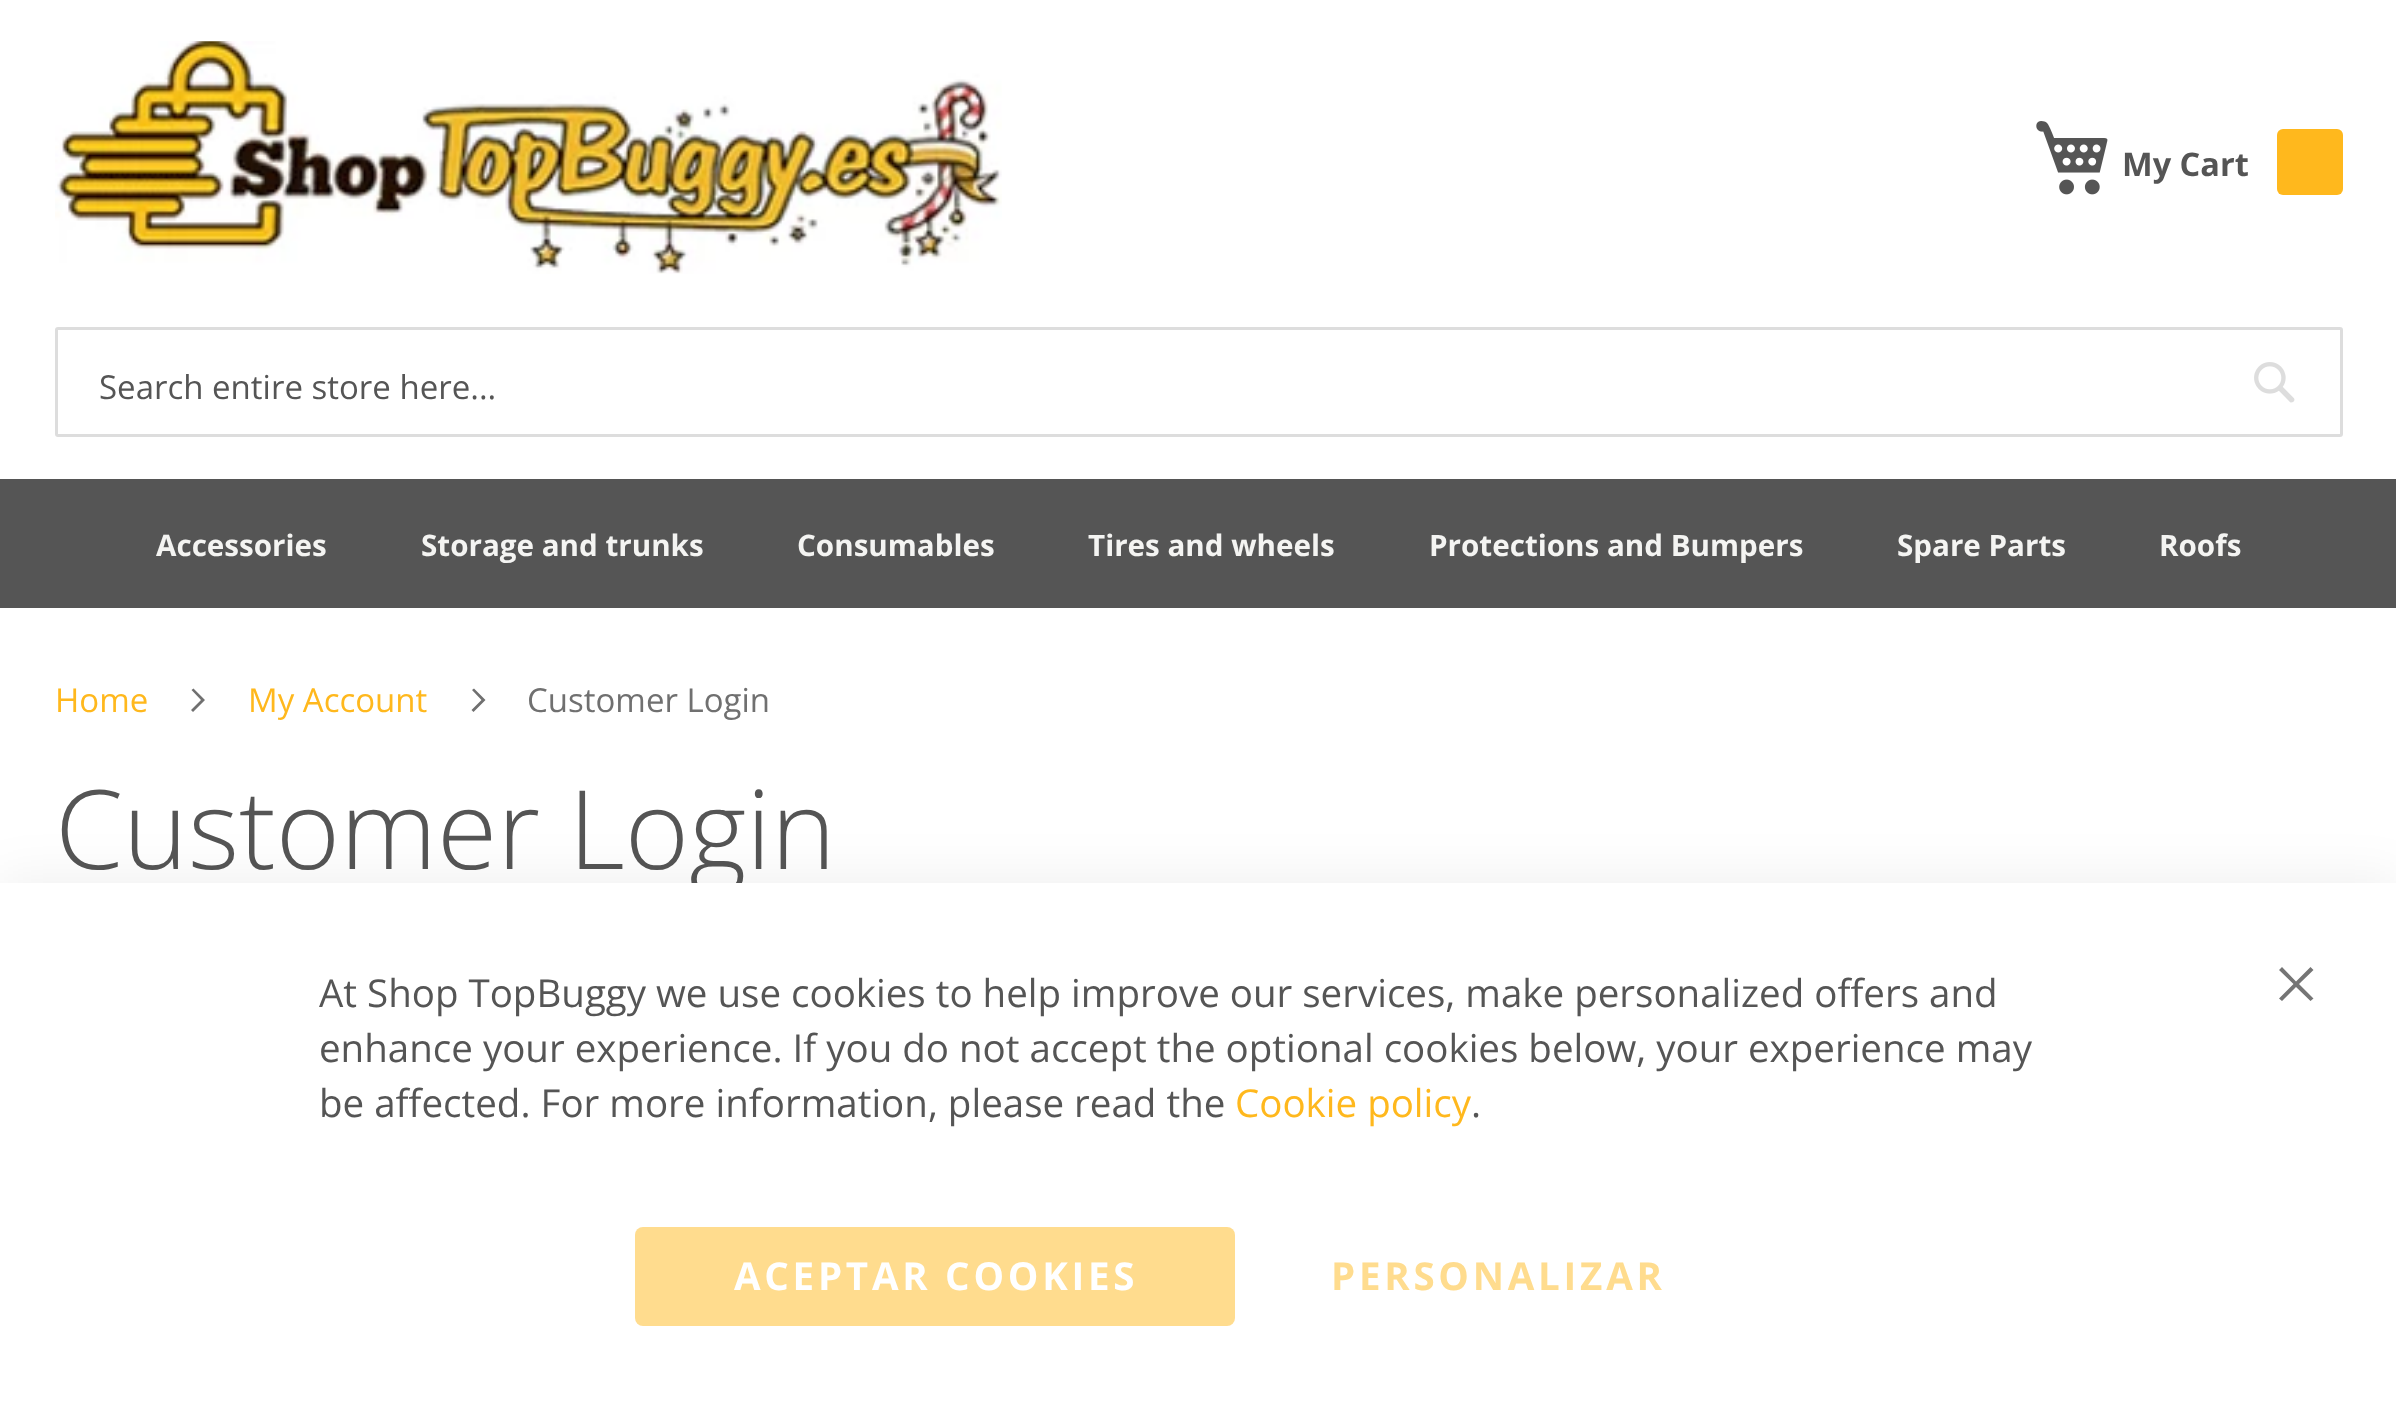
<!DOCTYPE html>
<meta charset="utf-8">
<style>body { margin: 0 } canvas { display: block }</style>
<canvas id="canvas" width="2396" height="1420"></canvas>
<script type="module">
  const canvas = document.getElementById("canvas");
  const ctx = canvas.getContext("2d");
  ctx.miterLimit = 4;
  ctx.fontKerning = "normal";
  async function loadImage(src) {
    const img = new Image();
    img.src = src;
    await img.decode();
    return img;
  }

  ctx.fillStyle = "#ffffff";
  ctx.fillRect(0, 0, 2396, 1420);
  ctx.drawImage(await loadImage("img1.png"), 55, 41, 947, 233);
  ctx.drawImage(await loadImage("img2.png"), 2036, 121, 72, 74);
  ctx.font = "bold 32.5px Open Sans";
  ctx.fillStyle = "#555555";
  ctx.fillText("My Cart", 2122, 176);
  ctx.fillStyle = "#ffb81d";
  ctx.beginPath();
  ctx.roundRect(2277, 129, 66, 66, 6);
  ctx.fill();
  ctx.beginPath();
  ctx.roundRect(56.5, 328.5, 2285, 107, 1.5);
  ctx.strokeStyle = "#dddddd";
  ctx.lineWidth = 3;
  ctx.stroke();
  ctx.font = "33px Open Sans";
  ctx.fillStyle = "#555555";
  ctx.fillText("Search entire store here...", 99, 399);
  ctx.drawImage(await loadImage("img3.png"), 2254, 362, 41, 41);
  ctx.fillRect(0, 479, 2396, 129);
  ctx.font = "bold 29.6px Open Sans";
  ctx.fillStyle = "#f4f4f2";
  ctx.fillText("Accessories", 156, 556);
  ctx.fillText("Storage and trunks", 421, 556);
  ctx.fillText("Consumables", 797, 556);
  ctx.fillText("Tires and wheels", 1088, 556);
  ctx.fillText("Protections and Bumpers", 1429, 556);
  ctx.fillText("Spare Parts", 1897, 556);
  ctx.fillText("Roofs", 2159, 556);
  ctx.font = "33px Open Sans";
  ctx.fillStyle = "#ffb81d";
  ctx.fillText("Home", 55, 712);
  ctx.fillStyle = "#707070";
  ctx.beginPath();
  ctx.moveTo(205, 700);
  ctx.lineTo(193.5, 688.5);
  ctx.lineTo(191.5, 690);
  ctx.lineTo(201, 700);
  ctx.lineTo(191, 710);
  ctx.lineTo(193, 712);
  ctx.closePath();
  ctx.fill();
  ctx.fillStyle = "#ffb81d";
  ctx.fillText("My Account", 248, 712);
  ctx.fillStyle = "#707070";
  ctx.beginPath();
  ctx.moveTo(485.5, 700);
  ctx.lineTo(474, 688.5);
  ctx.lineTo(472, 690);
  ctx.lineTo(481.5, 700);
  ctx.lineTo(471.5, 710);
  ctx.lineTo(473.5, 712);
  ctx.closePath();
  ctx.fill();
  ctx.fillText("Customer Login", 527, 712);
  ctx.font = "300 109.75px Open Sans";
  ctx.fillStyle = "#555555";
  ctx.fillText("Customer Login", 55, 869);
  ctx.fillStyle = "rgba(0, 0, 0, 0.06)";
  ctx.filter = "blur(25px)";
  ctx.beginPath();
  ctx.rect(0, 877, 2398, 539);
  ctx.fill();
  ctx.filter = "none";
  ctx.fillStyle = "#ffffff";
  ctx.fillRect(0, 883, 2396, 537);
  ctx.font = "38.5px Open Sans";
  ctx.fillStyle = "#555555";
  ctx.fillText("At Shop TopBuggy we use cookies to help improve our services, make personalized offers and", 319, 1007);
  ctx.fillText("enhance your experience. If you do not accept the optional cookies below, your experience may", 319, 1062);
  ctx.fillText("be affected. For more information, please read the", 319, 1117);
  ctx.fillStyle = "#ffb81d";
  ctx.fillText("Cookie policy", 1235, 1117);
  ctx.fillStyle = "#555555";
  ctx.fillText(".", 1471, 1117);
  ctx.fillStyle = "#ffdc8e";
  ctx.beginPath();
  ctx.roundRect(635, 1227, 600, 99, 8);
  ctx.fill();
  ctx.letterSpacing = "3.75px";
  ctx.font = "bold 38.5px Open Sans";
  ctx.fillStyle = "#ffffff";
  ctx.fillText("ACEPTAR COOKIES", 734, 1290);
  ctx.fillStyle = "#ffdc8e";
  ctx.fillText("PERSONALIZAR", 1331, 1290);
  ctx.fillStyle = "#757575";
  ctx.beginPath();
  ctx.moveTo(2313.5, 970);
  ctx.lineTo(2310.5, 967);
  ctx.lineTo(2296, 981.5);
  ctx.lineTo(2282, 967);
  ctx.lineTo(2279, 970);
  ctx.lineTo(2293.5, 984);
  ctx.lineTo(2279, 998.5);
  ctx.lineTo(2282, 1001);
  ctx.lineTo(2296, 987);
  ctx.lineTo(2310.5, 1001);
  ctx.lineTo(2313.5, 998.5);
  ctx.lineTo(2299, 984);
  ctx.closePath();
  ctx.fill();
</script>
